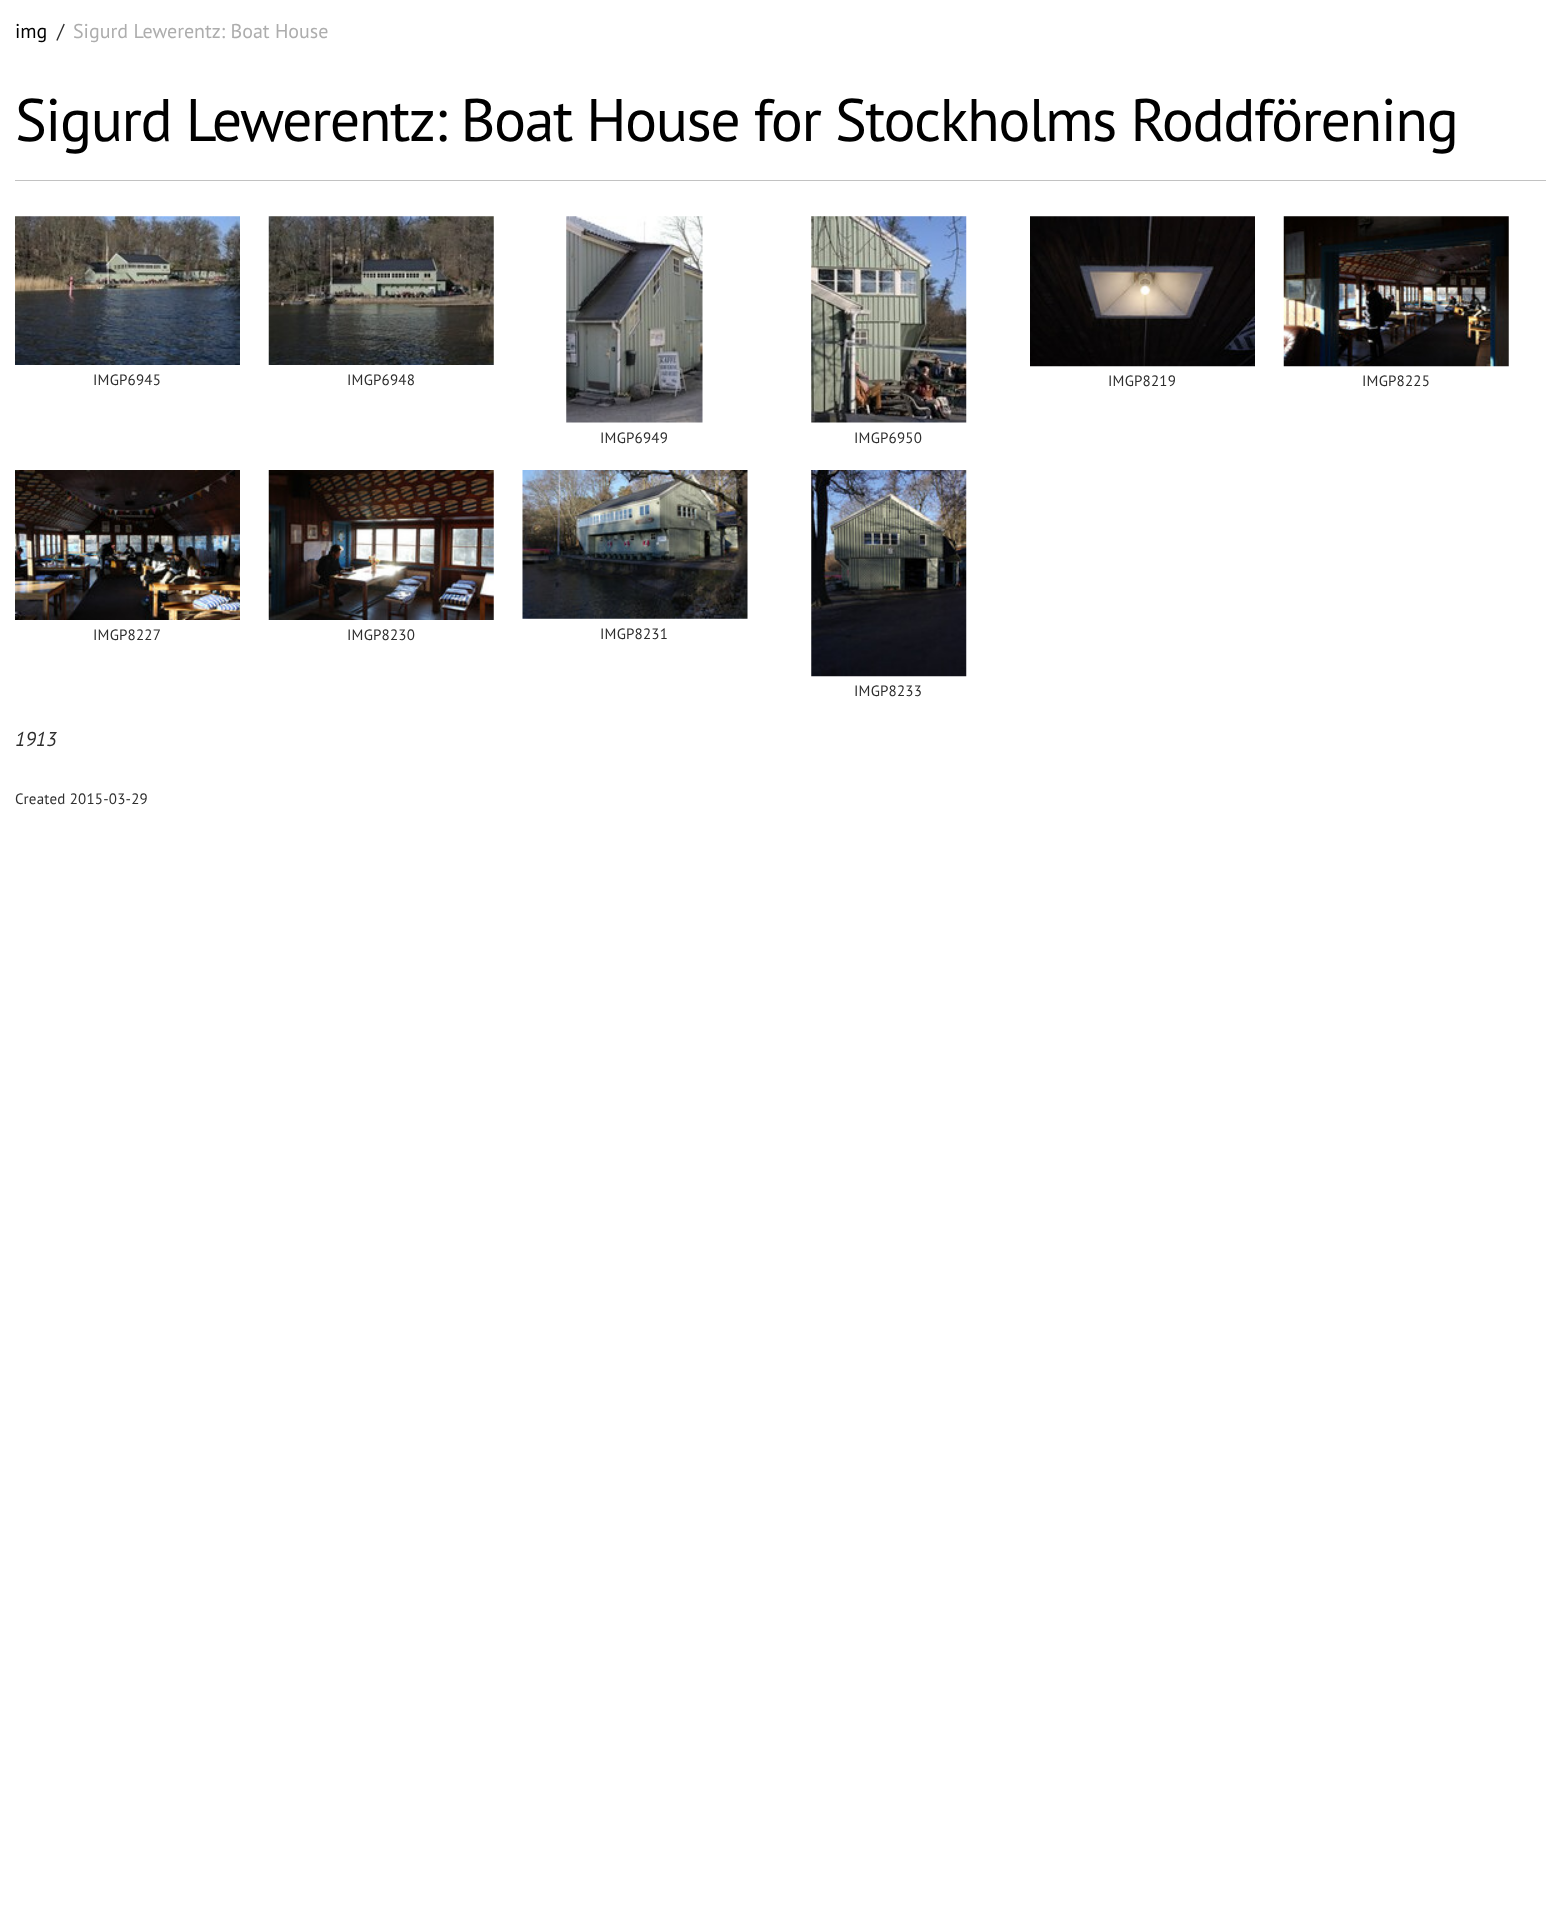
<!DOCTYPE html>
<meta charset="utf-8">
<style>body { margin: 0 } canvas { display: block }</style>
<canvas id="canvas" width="1561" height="1921"></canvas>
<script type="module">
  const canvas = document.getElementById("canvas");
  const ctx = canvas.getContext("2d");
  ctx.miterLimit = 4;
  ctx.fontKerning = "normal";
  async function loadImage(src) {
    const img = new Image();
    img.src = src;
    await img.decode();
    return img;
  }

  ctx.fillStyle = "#ffffff";
  ctx.fillRect(0, 0, 1561, 1921);
  ctx.font = "20px PT Sans";
  ctx.fillStyle = "#000000";
  ctx.fillText("img", 15, 38);
  ctx.fillStyle = "#2e2e2e";
  ctx.fillText("/", 57, 38);
  ctx.fillStyle = "#adadad";
  ctx.fillText("Sigurd Lewerentz: Boat House", 73, 38);
  ctx.fillStyle = "#c2c2c2";
  ctx.fillRect(15, 180, 1531, 1);
  ctx.letterSpacing = "-1.5px";
  ctx.font = "60px PT Sans";
  ctx.fillStyle = "#000000";
  ctx.fillText("Sigurd Lewerentz: Boat House for Stockholms Roddförening", 15, 141);
  ctx.drawImage(await loadImage("img1.png"), 15, 216, 225, 149);
  ctx.letterSpacing = "0.2px";
  ctx.font = "15px PT Sans";
  ctx.fillStyle = "#2e2e2e";
  ctx.fillText("IMGP6945", 93, 385);
  ctx.drawImage(await loadImage("img2.png"), 268, 216, 226, 149);
  ctx.fillText("IMGP6948", 347, 385);
  ctx.drawImage(await loadImage("img3.png"), 1030, 216, 225, 151);
  ctx.fillText("IMGP8219", 1108, 386);
  ctx.drawImage(await loadImage("img4.png"), 1283, 216, 226, 151);
  ctx.fillText("IMGP8225", 1362, 386);
  ctx.drawImage(await loadImage("img5.png"), 566, 216, 137, 207);
  ctx.fillText("IMGP6949", 600, 443);
  ctx.drawImage(await loadImage("img6.png"), 811, 216, 156, 207);
  ctx.fillText("IMGP6950", 854, 443);
  ctx.drawImage(await loadImage("img7.png"), 15, 470, 225, 150);
  ctx.fillText("IMGP8227", 93, 640);
  ctx.drawImage(await loadImage("img8.png"), 268, 470, 226, 150);
  ctx.fillText("IMGP8230", 347, 640);
  ctx.drawImage(await loadImage("img9.png"), 522, 470, 226, 149);
  ctx.fillText("IMGP8231", 600, 639);
  ctx.drawImage(await loadImage("img10.png"), 811, 470, 156, 207);
  ctx.fillText("IMGP8233", 854, 696);
  ctx.letterSpacing = "0px";
  ctx.font = "italic 20px PT Sans";
  ctx.fillText("1913", 15, 746);
  ctx.letterSpacing = "0.2px";
  ctx.font = "15px PT Sans";
  ctx.fillText("Created 2015-03-29", 15, 804);
</script>
